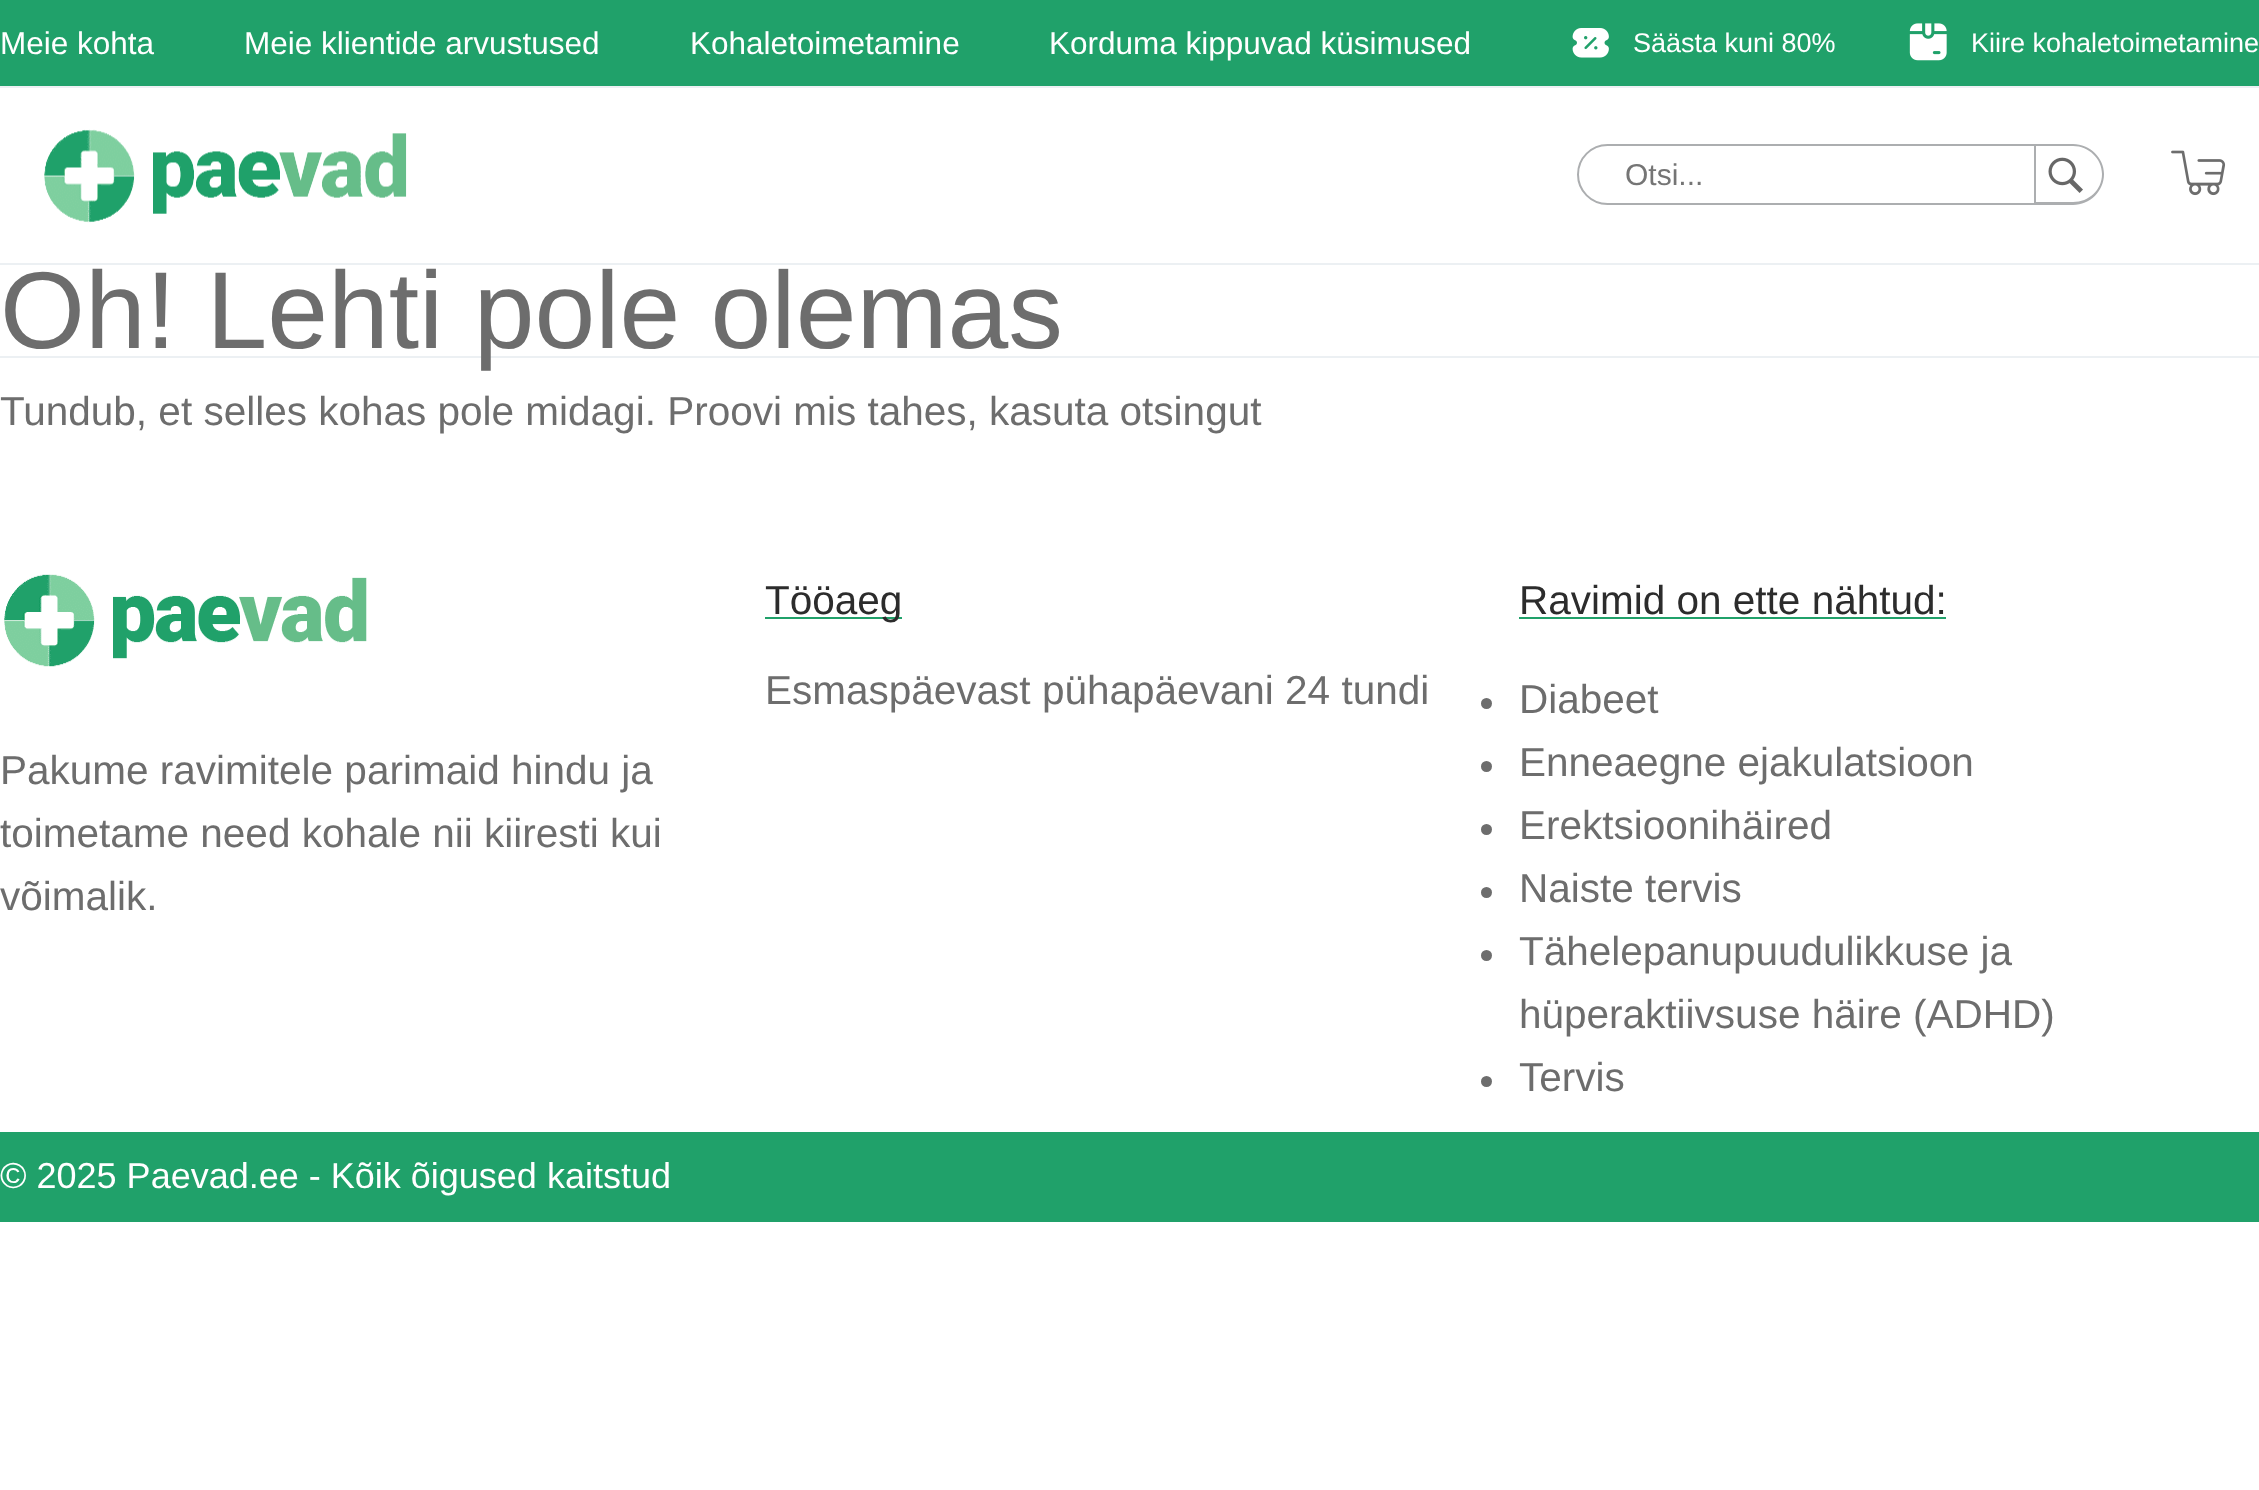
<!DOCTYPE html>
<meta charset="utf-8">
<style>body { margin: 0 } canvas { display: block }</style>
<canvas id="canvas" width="2259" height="1490"></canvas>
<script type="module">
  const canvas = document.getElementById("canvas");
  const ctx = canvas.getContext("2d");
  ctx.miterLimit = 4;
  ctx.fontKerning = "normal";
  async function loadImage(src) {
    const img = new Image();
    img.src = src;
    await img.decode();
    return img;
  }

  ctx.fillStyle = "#ffffff";
  ctx.fillRect(0, 0, 2259, 1490);
  ctx.fillStyle = "#ecf0f3";
  ctx.fillRect(0, 263, 2259, 2);
  ctx.fillStyle = "#20a16a";
  ctx.fillRect(0, 0, 2259, 86);
  ctx.fillStyle = "#ecf0f3";
  ctx.fillRect(0, 86, 2259, 2);
  ctx.font = "31.5px Liberation Sans";
  ctx.fillStyle = "#ffffff";
  ctx.fillText("Meie kohta", 0, 54);
  ctx.fillText("Meie klientide arvustused", 244, 54);
  ctx.fillText("Kohaletoimetamine", 690, 54);
  ctx.fillText("Korduma kippuvad küsimused", 1049, 54);
  ctx.drawImage(await loadImage("img1.png"), 1572, 28, 37, 30);
  ctx.font = "27px Liberation Sans";
  ctx.fillText("Säästa kuni 80%", 1633, 52);
  ctx.drawImage(await loadImage("img2.png"), 1909, 23, 38, 38);
  ctx.fillText("Kiire kohaletoimetamine", 1971, 52);
  ctx.drawImage(await loadImage("img3.png"), 44, 129, 363, 94);
  ctx.beginPath();
  ctx.roundRect(1578, 145, 457, 59, [29.5, 0, 0, 29.5]);
  ctx.strokeStyle = "#acaeb0";
  ctx.lineWidth = 2;
  ctx.stroke();
  ctx.font = "30px Liberation Sans";
  ctx.fillStyle = "#757575";
  ctx.fillText("Otsi...", 1625, 185);
  ctx.fillStyle = "#acaeb0";
  ctx.beginPath();
  ctx.moveTo(2036, 144);
  ctx.lineTo(2073, 144);
  ctx.bezierCurveTo(2090, 144, 2104, 158, 2104, 174);
  ctx.bezierCurveTo(2104, 191, 2090, 205, 2073, 205);
  ctx.lineTo(2036, 205);
  ctx.closePath();
  ctx.moveTo(2036, 146);
  ctx.lineTo(2073, 146);
  ctx.bezierCurveTo(2089, 146, 2102, 159, 2102, 174);
  ctx.bezierCurveTo(2102, 190, 2089, 202, 2073, 202);
  ctx.lineTo(2036, 202);
  ctx.closePath();
  ctx.fill("evenodd");
  ctx.drawImage(await loadImage("img4.png"), 2048, 157, 35, 36);
  ctx.drawImage(await loadImage("img5.png"), 2171, 150, 55, 46);
  ctx.fillStyle = "#ecf0f3";
  ctx.fillRect(0, 356, 2259, 2);
  ctx.font = "109.25px Liberation Sans";
  ctx.fillStyle = "#6d6d6d";
  ctx.fillText("Oh! Lehti pole olemas", 0, 348);
  ctx.font = "40.5px Liberation Sans";
  ctx.fillText("Tundub, et selles kohas pole midagi. Proovi mis tahes, kasuta otsingut", 0, 425);
  ctx.fillStyle = "#20a16a";
  ctx.fillRect(765, 617, 137, 2);
  ctx.fillStyle = "#2c2c2c";
  ctx.fillText("Tööaeg", 765, 614);
  ctx.fillStyle = "#6d6d6d";
  ctx.fillText("Esmaspäevast pühapäevani 24 tundi", 765, 704);
  ctx.fillStyle = "#2c2c2c";
  ctx.fillText("Ravimid on ette nähtud:", 1519, 614);
  ctx.fillStyle = "#20a16a";
  ctx.fillRect(1519, 617, 427, 2);
  ctx.fillStyle = "#6d6d6d";
  ctx.beginPath();
  ctx.arc(1486.5, 703.5, 5.5, 0, Math.PI * 2);
  ctx.fill();
  ctx.fillText("Diabeet", 1519, 713);
  ctx.beginPath();
  ctx.arc(1486.5, 766.5, 5.5, 0, Math.PI * 2);
  ctx.fill();
  ctx.fillText("Enneaegne ejakulatsioon", 1519, 776);
  ctx.beginPath();
  ctx.arc(1486.5, 829.5, 5.5, 0, Math.PI * 2);
  ctx.fill();
  ctx.fillText("Erektsioonihäired", 1519, 839);
  ctx.beginPath();
  ctx.arc(1486.5, 892.5, 5.5, 0, Math.PI * 2);
  ctx.fill();
  ctx.fillText("Naiste tervis", 1519, 902);
  ctx.beginPath();
  ctx.arc(1486.5, 955.5, 5.5, 0, Math.PI * 2);
  ctx.fill();
  ctx.fillText("Tähelepanupuudulikkuse ja", 1519, 965);
  ctx.fillText("hüperaktiivsuse häire (ADHD)", 1519, 1028);
  ctx.beginPath();
  ctx.arc(1486.5, 1081.5, 5.5, 0, Math.PI * 2);
  ctx.fill();
  ctx.fillText("Tervis", 1519, 1091);
  ctx.drawImage(await loadImage("img6.png"), 4, 574, 363, 93);
  ctx.fillText("Pakume ravimitele parimaid hindu ja", 0, 784);
  ctx.fillText("toimetame need kohale nii kiiresti kui", 0, 847);
  ctx.fillText("võimalik.", 0, 910);
  ctx.fillStyle = "#20a16a";
  ctx.fillRect(0, 1132, 2259, 90);
  ctx.font = "36px Liberation Sans";
  ctx.fillStyle = "#ffffff";
  ctx.fillText("© 2025 Paevad.ee - Kõik õigused kaitstud", 0, 1188);
</script>
